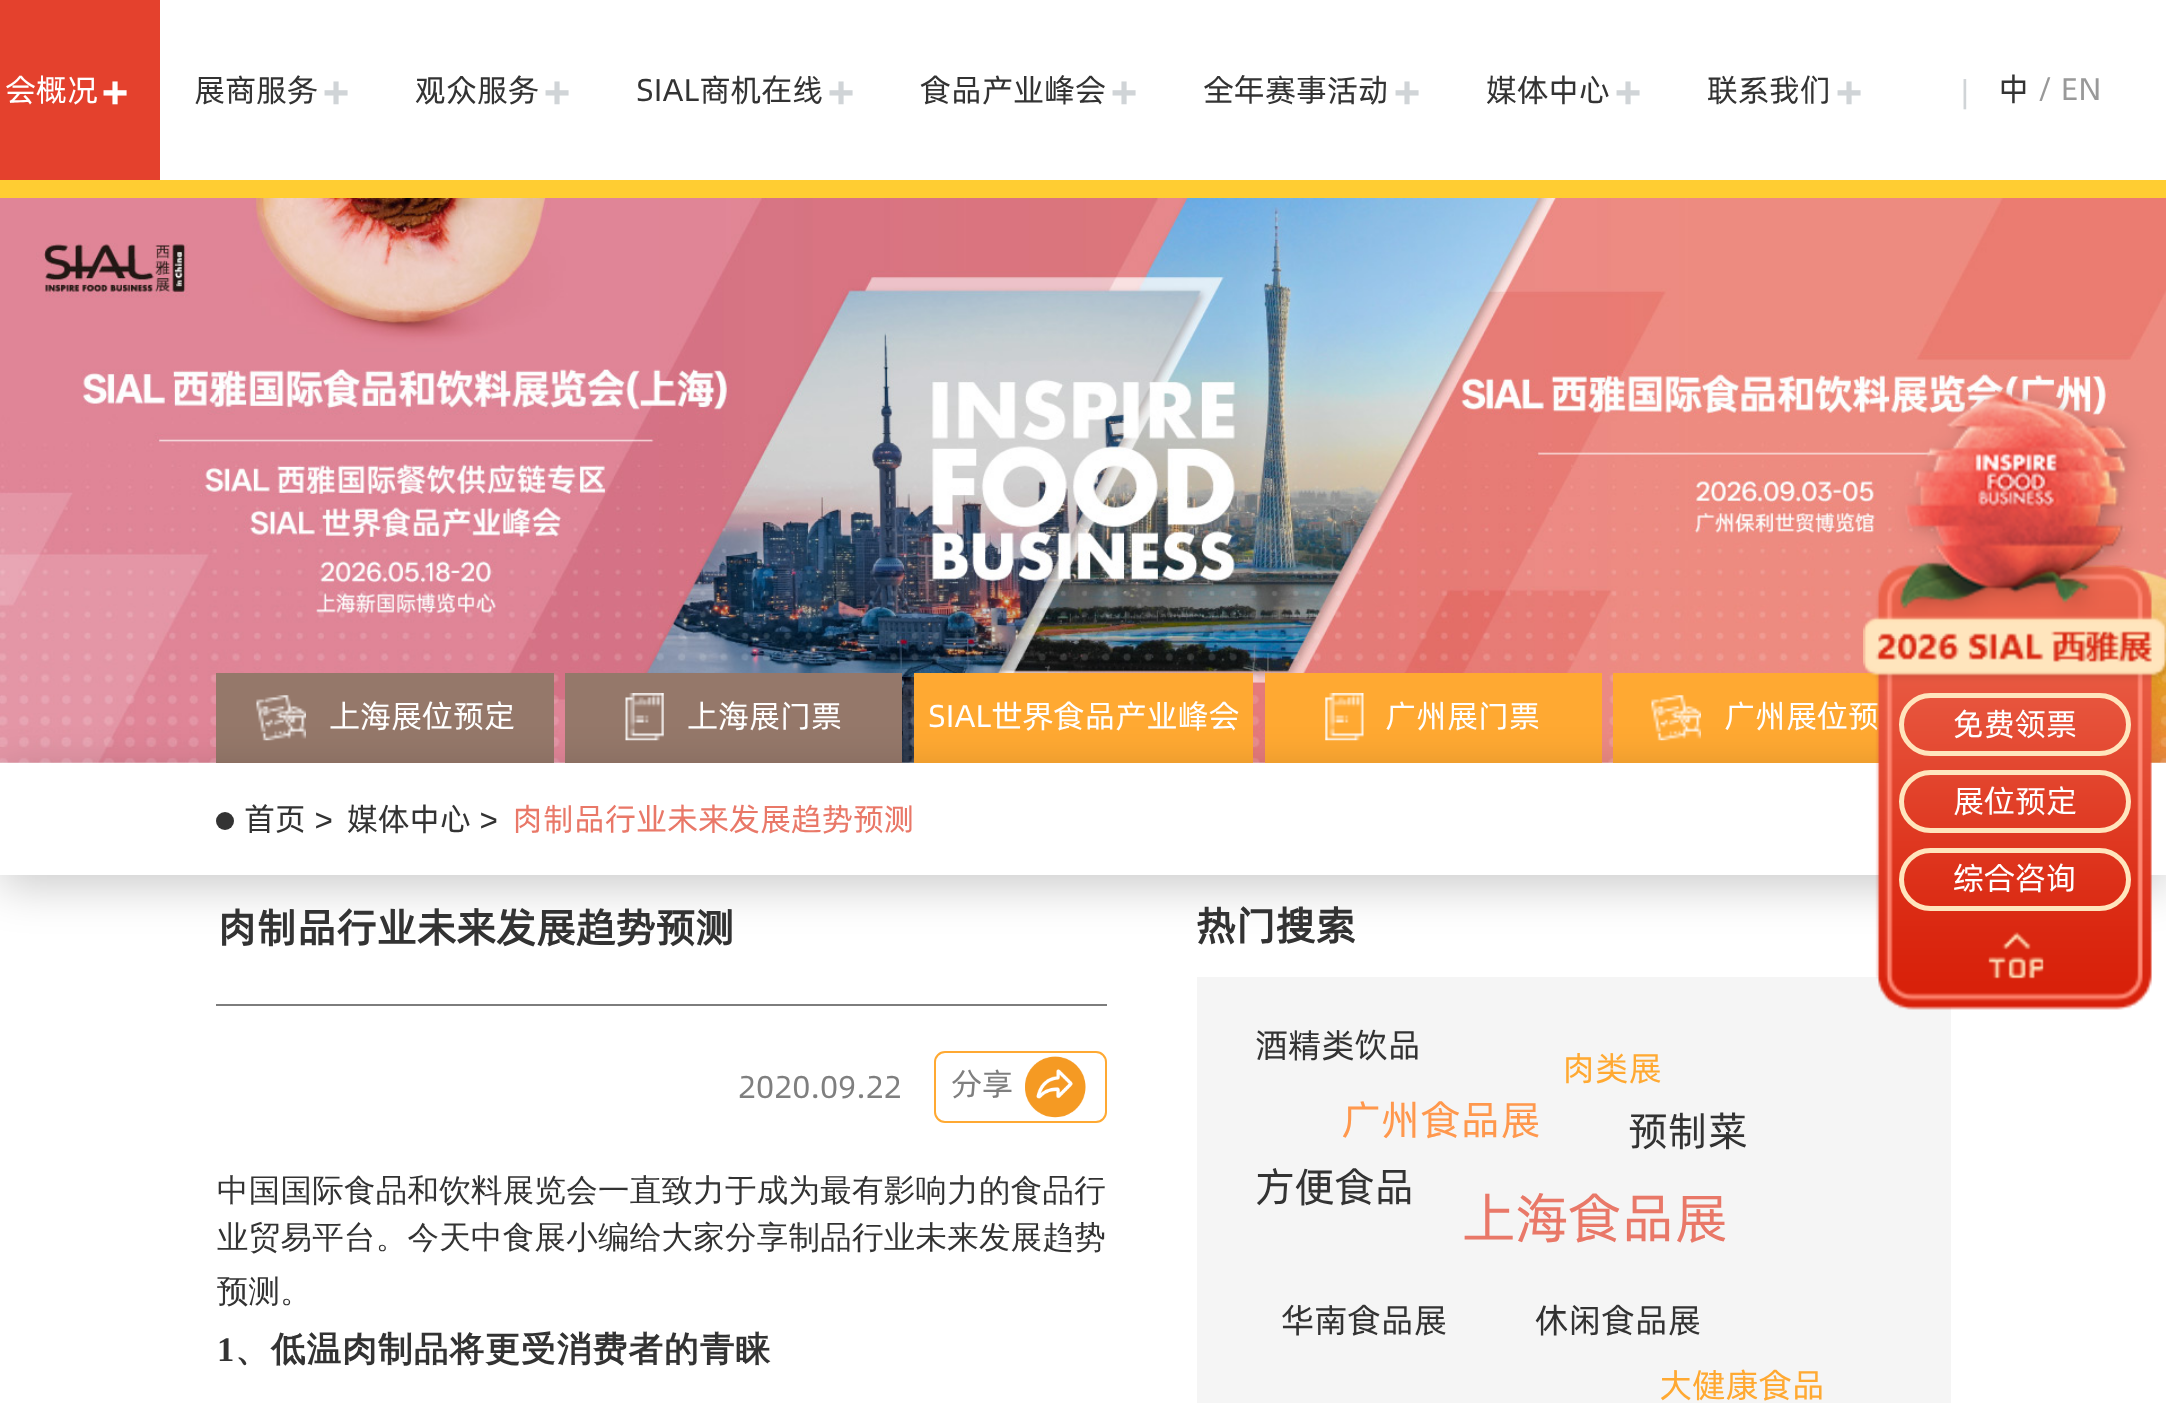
<!DOCTYPE html>
<meta charset="utf-8">
<style>body { margin: 0 } canvas { display: block }</style>
<canvas id="canvas" width="2166" height="1403"></canvas>
<script type="module">
  const canvas = document.getElementById("canvas");
  const ctx = canvas.getContext("2d");
  ctx.miterLimit = 4;
  ctx.fontKerning = "normal";
  async function loadImage(src) {
    const img = new Image();
    img.src = src;
    await img.decode();
    return img;
  }

  ctx.fillStyle = "#ffffff";
  ctx.fillRect(0, 0, 2166, 1403);
  ctx.fillStyle = "#ffcd32";
  ctx.fillRect(0, 180, 2166, 18);
  ctx.fillStyle = "#e4412d";
  ctx.fillRect(0, 0, 160, 180);
  ctx.font = "31.5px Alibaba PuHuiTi";
  ctx.fillStyle = "#ffffff";
  ctx.fillText("会概况", 5, 101);
  ctx.font = "bold 45px Alibaba PuHuiTi";
  ctx.fillText("+", 102, 107);
  ctx.font = "31.5px Alibaba PuHuiTi";
  ctx.fillStyle = "#333333";
  ctx.fillText("展商服务", 194, 101);
  ctx.font = "bold 45px Alibaba PuHuiTi";
  ctx.fillStyle = "#d0d4d7";
  ctx.fillText("+", 323, 107);
  ctx.font = "31.5px Alibaba PuHuiTi";
  ctx.fillStyle = "#333333";
  ctx.fillText("观众服务", 415, 101);
  ctx.font = "bold 45px Alibaba PuHuiTi";
  ctx.fillStyle = "#d0d4d7";
  ctx.fillText("+", 544, 107);
  ctx.font = "31.5px Alibaba PuHuiTi";
  ctx.fillStyle = "#333333";
  ctx.fillText("SIAL商机在线", 636, 101);
  ctx.font = "bold 45px Alibaba PuHuiTi";
  ctx.fillStyle = "#d0d4d7";
  ctx.fillText("+", 828, 107);
  ctx.font = "31.5px Alibaba PuHuiTi";
  ctx.fillStyle = "#333333";
  ctx.fillText("食品产业峰会", 920, 101);
  ctx.font = "bold 45px Alibaba PuHuiTi";
  ctx.fillStyle = "#d0d4d7";
  ctx.fillText("+", 1111, 107);
  ctx.font = "31.5px Alibaba PuHuiTi";
  ctx.fillStyle = "#333333";
  ctx.fillText("全年赛事活动", 1203, 101);
  ctx.font = "bold 45px Alibaba PuHuiTi";
  ctx.fillStyle = "#d0d4d7";
  ctx.fillText("+", 1394, 107);
  ctx.font = "31.5px Alibaba PuHuiTi";
  ctx.fillStyle = "#333333";
  ctx.fillText("媒体中心", 1486, 101);
  ctx.font = "bold 45px Alibaba PuHuiTi";
  ctx.fillStyle = "#d0d4d7";
  ctx.fillText("+", 1615, 107);
  ctx.font = "31.5px Alibaba PuHuiTi";
  ctx.fillStyle = "#333333";
  ctx.fillText("联系我们", 1707, 101);
  ctx.font = "bold 45px Alibaba PuHuiTi";
  ctx.fillStyle = "#d0d4d7";
  ctx.fillText("+", 1836, 107);
  ctx.font = "31.5px Alibaba PuHuiTi";
  ctx.fillText("|", 1962, 103);
  ctx.fillStyle = "#333333";
  ctx.fillText("中", 1998, 100);
  ctx.fillStyle = "#999999";
  ctx.fillText("/ EN", 2037, 100);
  ctx.drawImage(await loadImage("img1.png"), 0, 198, 2166, 565);
  ctx.fillStyle = "#95786a";
  ctx.fillRect(216, 673, 338, 90);
  ctx.drawImage(await loadImage("img2.png"), 256, 695, 50, 46);
  ctx.fillStyle = "#ffffff";
  ctx.fillText("上海展位预定", 329, 727);
  ctx.fillStyle = "#95786a";
  ctx.fillRect(565, 673, 337, 90);
  ctx.drawImage(await loadImage("img3.png"), 625, 693, 39, 48);
  ctx.fillStyle = "#ffffff";
  ctx.fillText("上海展门票", 687, 727);
  ctx.fillStyle = "#ffa932";
  ctx.fillRect(914, 673, 339, 90);
  ctx.fillStyle = "#ffffff";
  ctx.fillText("SIAL世界食品产业峰会", 928, 727);
  ctx.fillStyle = "#ffa932";
  ctx.fillRect(1265, 673, 337, 90);
  ctx.drawImage(await loadImage("img4.png"), 1325, 693, 39, 48);
  ctx.fillStyle = "#ffffff";
  ctx.fillText("广州展门票", 1385, 727);
  ctx.fillStyle = "#ffa932";
  ctx.fillRect(1613, 673, 267, 90);
  ctx.drawImage(await loadImage("img5.png"), 1651, 695, 50, 46);
  ctx.fillStyle = "#ffffff";
  ctx.fillText("广州展位预", 1724, 727);
  ctx.save();
  ctx.beginPath();
  ctx.moveTo(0, 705);
  ctx.lineTo(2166, 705);
  ctx.lineTo(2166, 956);
  ctx.lineTo(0, 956);
  ctx.closePath();
  ctx.moveTo(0, 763);
  ctx.lineTo(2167, 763);
  ctx.lineTo(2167, 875);
  ctx.lineTo(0, 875);
  ctx.closePath();
  ctx.clip("evenodd");
  ctx.fillStyle = "rgba(0, 0, 0, 0.2)";
  ctx.filter = "blur(22.5px)";
  ctx.beginPath();
  ctx.rect(0, 774, 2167, 113);
  ctx.fill();
  ctx.filter = "none";
  ctx.restore();
  ctx.fillStyle = "#f5f5f5";
  ctx.fillRect(1197, 977, 754, 426);
  ctx.drawImage(await loadImage("img6.png"), 1863, 388, 303, 622);
  ctx.beginPath();
  ctx.roundRect(1901.5, 695.5, 227, 58, 29);
  ctx.strokeStyle = "#ffe5bd";
  ctx.lineWidth = 5;
  ctx.stroke();
  ctx.fillStyle = "#ffffff";
  ctx.fillText("免费领票", 1953, 735);
  ctx.beginPath();
  ctx.roundRect(1901.5, 772.5, 227, 58, 29);
  ctx.stroke();
  ctx.fillText("展位预定", 1953, 812);
  ctx.beginPath();
  ctx.roundRect(1901.5, 850.5, 227, 58, 29);
  ctx.stroke();
  ctx.fillText("综合咨询", 1953, 889);
  ctx.drawImage(await loadImage("img7.png"), 1988, 932, 56, 47);
  ctx.fillStyle = "#333333";
  ctx.beginPath();
  ctx.arc(225, 821, 9, 0, Math.PI * 2);
  ctx.fill();
  ctx.fillText("首页", 244, 830);
  ctx.fillText(">", 315, 830);
  ctx.fillText("媒体中心", 347, 830);
  ctx.fillText(">", 480, 830);
  ctx.fillStyle = "#e97868";
  ctx.fillText("肉制品行业未来发展趋势预测", 512, 830);
  ctx.fillStyle = "#7d7d7d";
  ctx.fillRect(216, 1004, 891, 2);
  ctx.font = "bold 40.5px Alibaba PuHuiTi";
  ctx.fillStyle = "#333333";
  ctx.fillText("肉制品行业未来发展趋势预测", 217, 942);
  ctx.font = "31.5px Alibaba PuHuiTi";
  ctx.fillStyle = "#7f7f7f";
  ctx.fillText("2020.09.22", 738, 1098);
  ctx.beginPath();
  ctx.roundRect(935, 1052, 171, 70, 10);
  ctx.strokeStyle = "#ffa932";
  ctx.lineWidth = 2;
  ctx.stroke();
  ctx.fillText("分享", 951, 1095);
  ctx.drawImage(await loadImage("img8.png"), 1025, 1056, 61, 62);
  ctx.letterSpacing = "0.25px";
  ctx.font = "500 31.5px WenQuanYi Zen Hei";
  ctx.fillStyle = "#333333";
  ctx.fillText("中国国际食品和饮料展览会一直致力于成为最有影响力的食品行", 217, 1201);
  ctx.fillText("业贸易平台。今天中食展小编给大家分享制品行业未来发展趋势", 217, 1248);
  ctx.letterSpacing = "0px";
  ctx.fillText("预测。", 217, 1302);
  ctx.letterSpacing = "1.25px";
  ctx.font = "bold 34.5px Liberation Serif";
  ctx.fillText("1", 217, 1361);
  ctx.font = "bold 34.5px WenQuanYi Zen Hei";
  ctx.fillText("、低温肉制品将更受消费者的青睐", 235, 1361);
  ctx.letterSpacing = "0px";
  ctx.font = "bold 40.5px Alibaba PuHuiTi";
  ctx.fillText("热门搜索", 1196, 940);
  ctx.font = "33.75px Alibaba PuHuiTi";
  ctx.fillText("酒精类饮品", 1255, 1057);
  ctx.fillStyle = "#ffa932";
  ctx.fillText("肉类展", 1562, 1080);
  ctx.font = "40.5px Alibaba PuHuiTi";
  ctx.fillStyle = "#ff984d";
  ctx.fillText("广州食品展", 1341, 1134);
  ctx.fillStyle = "#333333";
  ctx.fillText("预制菜", 1628, 1145);
  ctx.fillText("方便食品", 1255, 1201);
  ctx.font = "54px Alibaba PuHuiTi";
  ctx.fillStyle = "#e97868";
  ctx.fillText("上海食品展", 1462, 1237);
  ctx.font = "33.75px Alibaba PuHuiTi";
  ctx.fillStyle = "#333333";
  ctx.fillText("华南食品展", 1281, 1332);
  ctx.fillText("休闲食品展", 1535, 1332);
  ctx.fillStyle = "#ffa932";
  ctx.fillText("大健康食品", 1659, 1397);
</script>
